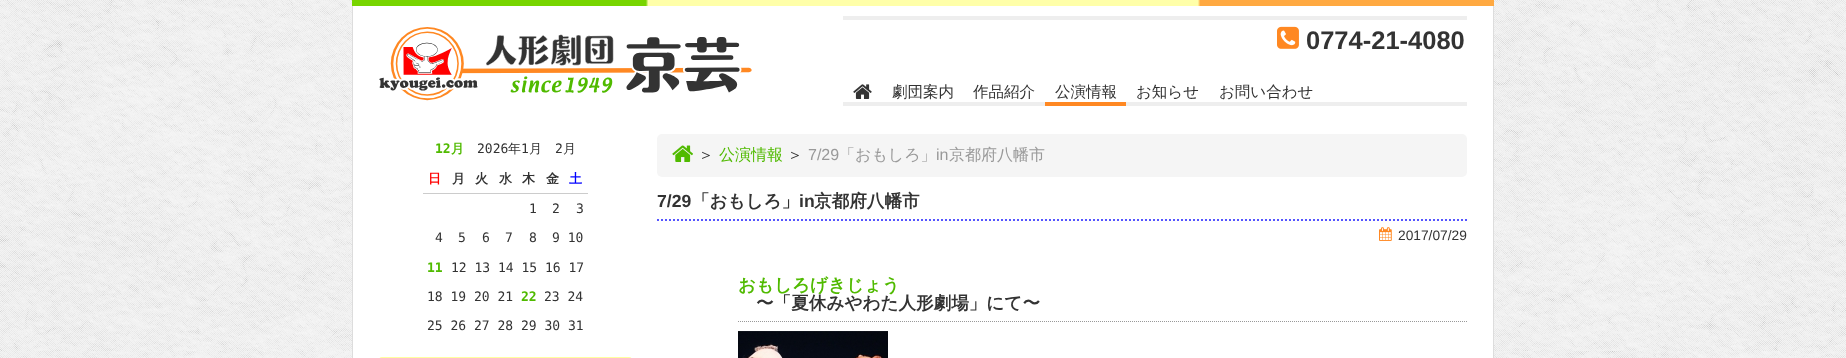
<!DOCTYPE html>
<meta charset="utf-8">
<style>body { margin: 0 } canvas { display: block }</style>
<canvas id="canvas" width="1846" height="358"></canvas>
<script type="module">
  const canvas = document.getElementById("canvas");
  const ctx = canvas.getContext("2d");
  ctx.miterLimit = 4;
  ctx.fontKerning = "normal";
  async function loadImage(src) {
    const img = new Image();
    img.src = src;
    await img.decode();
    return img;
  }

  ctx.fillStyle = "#f3f3f3";
  ctx.fillRect(0, 0, 1846, 358);
  ctx.drawImage(await loadImage("img1.png"), 0, 0, 1846, 358);
  ctx.fillStyle = "#dddddd";
  ctx.fillRect(1493, 0, 1, 358);
  ctx.fillRect(352, 0, 1, 358);
  ctx.drawImage(await loadImage("img2.png"), 352, 0, 1142, 6);
  ctx.fillStyle = "#ffffff";
  ctx.fillRect(353, 6, 1140, 352);
  ctx.drawImage(await loadImage("img3.png"), 379, 27, 373, 74);
  ctx.fillStyle = "#eeeeee";
  ctx.fillRect(843, 16, 624, 4);
  ctx.drawImage(await loadImage("img4.png"), 1277, 26, 22, 23);
  ctx.font = "bold 25.5px Liberation Sans";
  ctx.fillStyle = "#333333";
  ctx.fillText("0774-21-4080", 1306, 49);
  ctx.fillStyle = "#eeeeee";
  ctx.fillRect(843, 102, 624, 4);
  ctx.drawImage(await loadImage("img5.png"), 853, 84, 19, 15);
  ctx.font = "500 15.5px WenQuanYi Zen Hei";
  ctx.fillStyle = "#333333";
  ctx.fillText("劇団案内", 892, 97);
  ctx.fillText("作品紹介", 973, 97);
  ctx.fillStyle = "#ff8822";
  ctx.fillRect(1045, 102, 81, 4);
  ctx.fillStyle = "#333333";
  ctx.fillText("公演情報", 1055, 97);
  ctx.fillText("お知らせ", 1136, 97);
  ctx.fillText("お問い合わせ", 1219, 97);
  ctx.font = "bold 13px DejaVu Sans Mono";
  ctx.fillStyle = "#50ba00";
  ctx.fillText("12", 435, 153);
  ctx.font = "bold 13px WenQuanYi Zen Hei";
  ctx.fillText("月", 451, 153);
  ctx.font = "13px DejaVu Sans Mono";
  ctx.fillStyle = "#333333";
  ctx.fillText("2026", 477, 153);
  ctx.font = "500 13px WenQuanYi Zen Hei";
  ctx.fillText("年", 508, 153);
  ctx.font = "13px DejaVu Sans Mono";
  ctx.fillText("1", 521, 153);
  ctx.font = "500 13px WenQuanYi Zen Hei";
  ctx.fillText("月", 529, 153);
  ctx.font = "13px DejaVu Sans Mono";
  ctx.fillText("2", 555, 153);
  ctx.font = "500 13px WenQuanYi Zen Hei";
  ctx.fillText("月", 563, 153);
  ctx.font = "bold 13px WenQuanYi Zen Hei";
  ctx.fillStyle = "#ff0000";
  ctx.fillText("日", 428, 183);
  ctx.fillStyle = "#333333";
  ctx.fillText("月", 452, 183);
  ctx.fillText("火", 475, 183);
  ctx.fillText("水", 499, 183);
  ctx.fillText("木", 522, 183);
  ctx.fillText("金", 546, 183);
  ctx.fillStyle = "#cccccc";
  ctx.fillRect(423, 193, 165, 1);
  ctx.fillStyle = "#0000ff";
  ctx.fillText("土", 569, 183);
  ctx.font = "13px DejaVu Sans Mono";
  ctx.fillStyle = "#333333";
  ctx.fillText("1", 529, 213);
  ctx.fillText("2", 552, 213);
  ctx.fillText("3", 576, 213);
  ctx.fillText("4", 435, 242);
  ctx.fillText("5", 458, 242);
  ctx.fillText("6", 482, 242);
  ctx.fillText("7", 505, 242);
  ctx.fillText("8", 529, 242);
  ctx.fillText("9 10", 552, 242);
  ctx.font = "bold 13px DejaVu Sans Mono";
  ctx.fillStyle = "#50ba00";
  ctx.fillText("11", 427, 272);
  ctx.font = "13px DejaVu Sans Mono";
  ctx.fillStyle = "#333333";
  ctx.fillText("12 13 14 15 16 17", 451, 272);
  ctx.fillText("18 19 20 21", 427, 301);
  ctx.font = "bold 13px DejaVu Sans Mono";
  ctx.fillStyle = "#50ba00";
  ctx.fillText("22", 521, 301);
  ctx.font = "13px DejaVu Sans Mono";
  ctx.fillStyle = "#333333";
  ctx.fillText("23 24", 544, 301);
  ctx.fillText("25 26 27 28 29 30 31", 427, 330);
  ctx.fillStyle = "#ffff9e";
  ctx.beginPath();
  ctx.roundRect(379, 357, 253, 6, 5);
  ctx.fill();
  ctx.fillStyle = "#f5f5f5";
  ctx.beginPath();
  ctx.roundRect(657, 134, 810, 43, 5);
  ctx.fill();
  ctx.drawImage(await loadImage("img6.png"), 672, 145, 21, 17);
  ctx.font = "500 16px WenQuanYi Zen Hei";
  ctx.fillStyle = "#333333";
  ctx.fillText("＞", 698, 160);
  ctx.fillStyle = "#50ba00";
  ctx.fillText("公演情報", 719, 160);
  ctx.fillStyle = "#333333";
  ctx.fillText("＞", 787, 160);
  ctx.font = "16px Liberation Sans";
  ctx.fillStyle = "#999999";
  ctx.fillText("7/29", 808, 160);
  ctx.font = "500 16px WenQuanYi Zen Hei";
  ctx.fillText("「おもしろ」", 839, 160);
  ctx.font = "16px Liberation Sans";
  ctx.fillText("in", 936, 160);
  ctx.font = "500 16px WenQuanYi Zen Hei";
  ctx.fillText("京都府八幡市", 949, 160);
  ctx.beginPath();
  ctx.moveTo(657, 220);
  ctx.lineTo(1467, 220);
  ctx.strokeStyle = "#5555ff";
  ctx.lineWidth = 2;
  ctx.setLineDash([2, 2]);
  ctx.stroke();
  ctx.font = "bold 17.6px Liberation Sans";
  ctx.fillStyle = "#333333";
  ctx.fillText("7/29", 657, 207);
  ctx.font = "bold 17.6px WenQuanYi Zen Hei";
  ctx.fillText("「おもしろ」", 692, 207);
  ctx.font = "bold 17.6px Liberation Sans";
  ctx.fillText("in", 799, 207);
  ctx.font = "bold 17.6px WenQuanYi Zen Hei";
  ctx.fillText("京都府八幡市", 814, 207);
  ctx.drawImage(await loadImage("img7.png"), 1379, 227, 13, 14);
  ctx.font = "13.75px Liberation Sans";
  ctx.fillText("2017/07/29", 1398, 240);
  ctx.beginPath();
  ctx.moveTo(738, 321.5);
  ctx.lineTo(1467, 321.5);
  ctx.strokeStyle = "#999999";
  ctx.lineWidth = 1;
  ctx.setLineDash([1, 1]);
  ctx.stroke();
  ctx.font = "bold 17.6px WenQuanYi Zen Hei";
  ctx.fillStyle = "#50ba00";
  ctx.fillText("おもしろげきじょう", 738, 291);
  ctx.fillStyle = "#333333";
  ctx.fillText("〜「夏休みやわた人形劇場」にて〜", 756, 309);
  ctx.drawImage(await loadImage("img8.png"), 738, 331, 150, 27);
</script>
